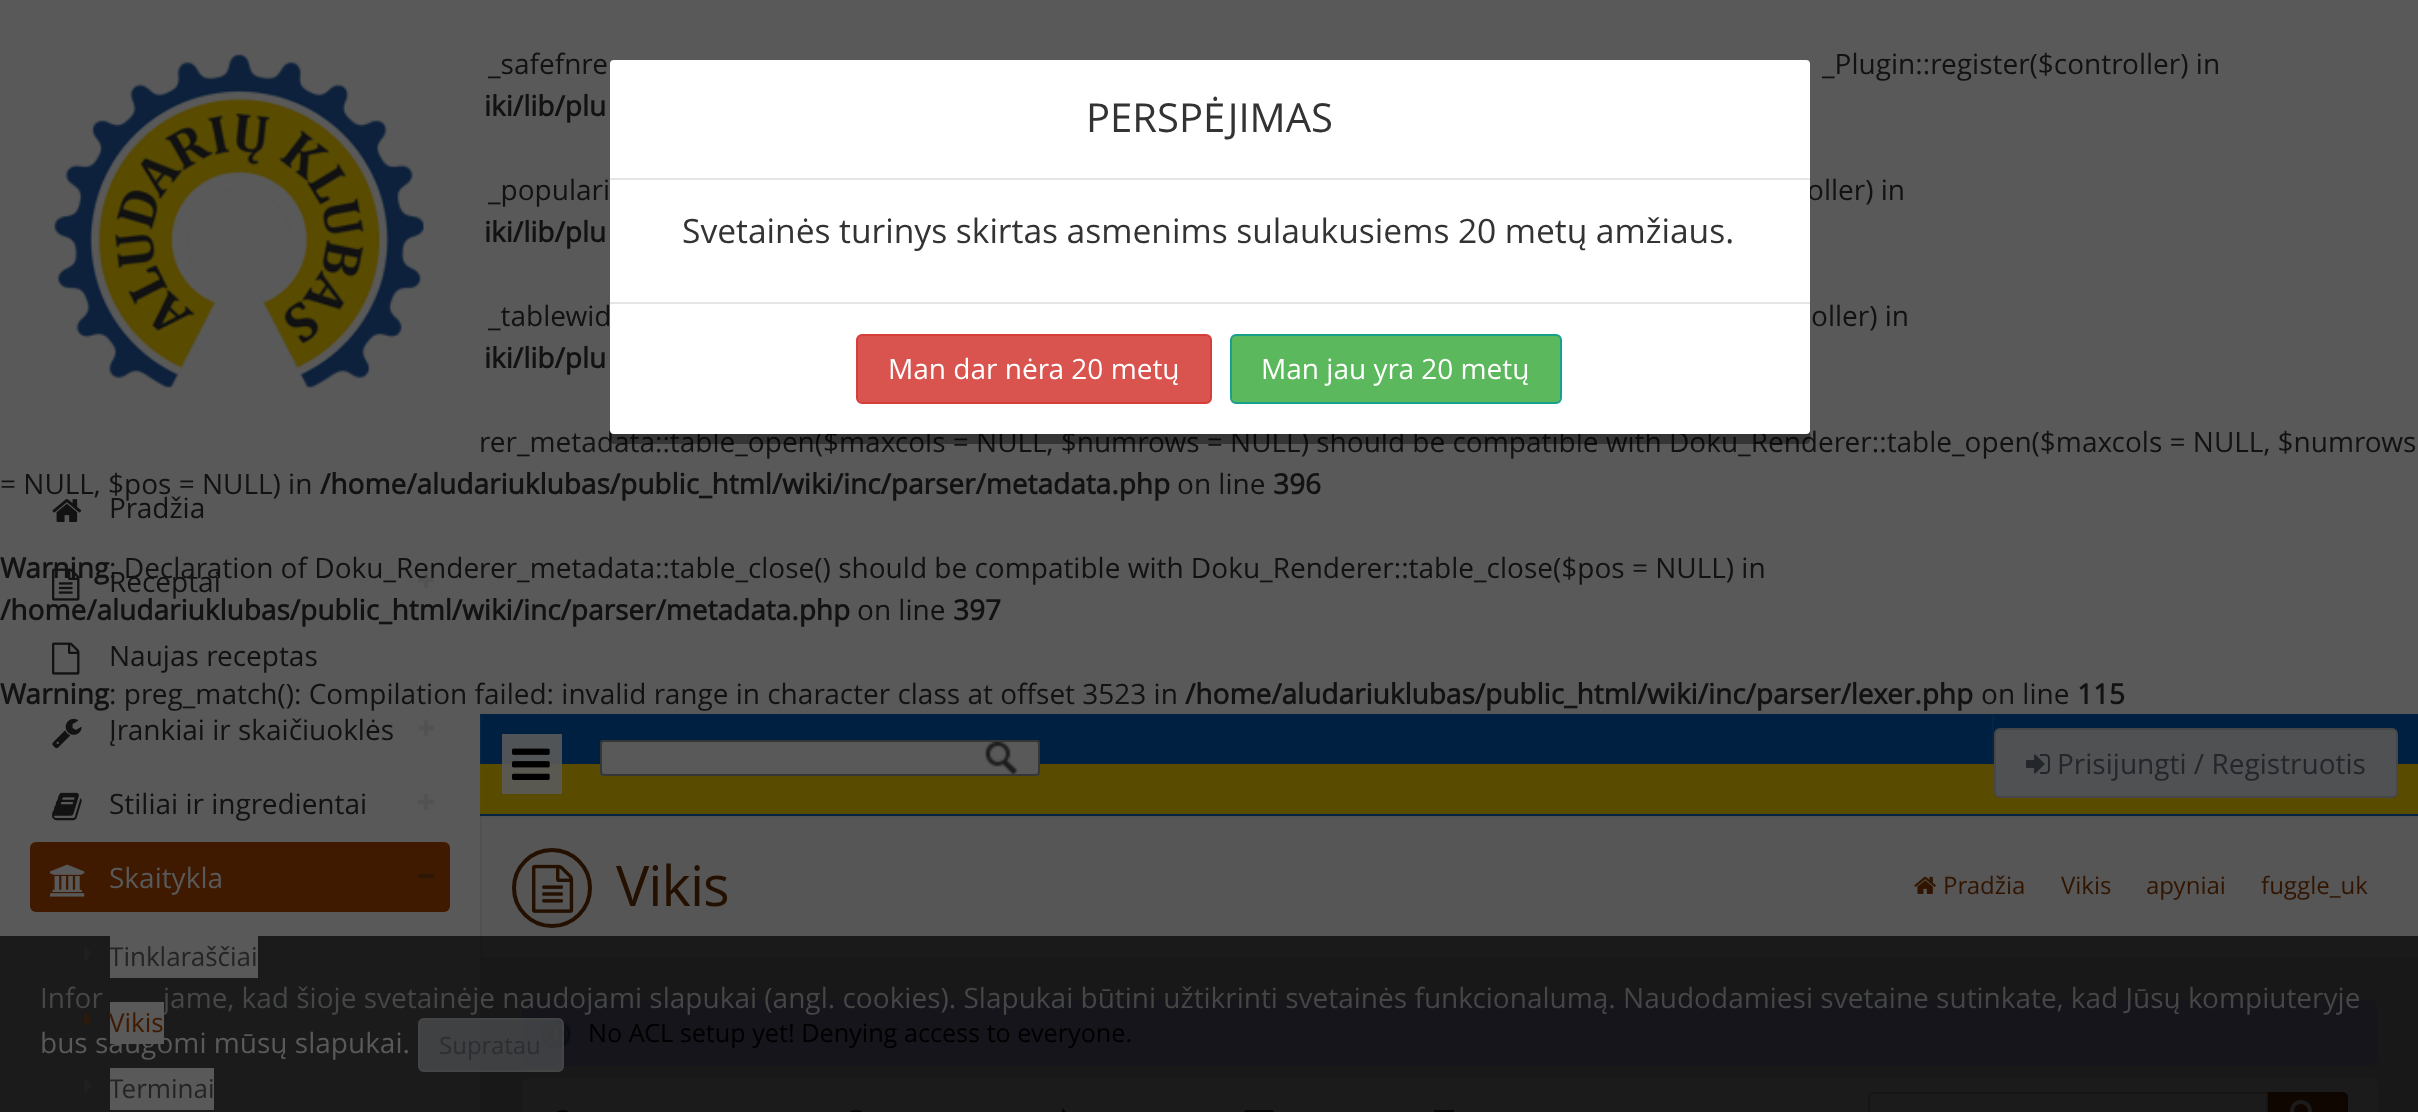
<!DOCTYPE html>
<meta charset="utf-8">
<style>body { margin: 0 } canvas { display: block }</style>
<canvas id="canvas" width="2418" height="1112"></canvas>
<script type="module">
  const canvas = document.getElementById("canvas");
  const ctx = canvas.getContext("2d");
  ctx.miterLimit = 4;
  ctx.fontKerning = "normal";
  async function loadImage(src) {
    const img = new Image();
    img.src = src;
    await img.decode();
    return img;
  }

  ctx.fillStyle = "#595959";
  ctx.fillRect(0, 0, 2418, 1112);
  ctx.fillStyle = "#1b1b1b";
  ctx.fillRect(0, 936, 480, 176);
  ctx.font = "28px Open Sans";
  ctx.fillStyle = "#121212";
  ctx.fillText("_safefnre", 488, 74);
  ctx.fillText("_Plugin::register($controller) in", 1822, 74);
  ctx.font = "bold 28px Open Sans";
  ctx.fillText("iki/lib/plu", 484, 116);
  ctx.font = "28px Open Sans";
  ctx.fillText("rer_metadata::table_open($maxcols = NULL, $numrows = NULL) should be compatible with Doku_Renderer::table_open($maxcols = NULL, $numrows", 479, 452);
  ctx.fillStyle = "rgba(0, 0, 0, 0.4)";
  ctx.beginPath();
  ctx.moveTo(610, 430);
  ctx.bezierCurveTo(610, 434, 608, 444, 614, 444);
  ctx.lineTo(1807, 444);
  ctx.bezierCurveTo(1812, 443, 1810, 434, 1810, 430);
  ctx.bezierCurveTo(1810, 432, 1808, 434, 1806, 434);
  ctx.lineTo(614, 434);
  ctx.bezierCurveTo(612, 434, 610, 432, 610, 430);
  ctx.closePath();
  ctx.fill();
  ctx.fillStyle = "#121212";
  ctx.fillText("oller) in", 1807, 200);
  ctx.fillStyle = "#ffffff";
  ctx.beginPath();
  ctx.roundRect(610, 60, 1200, 374, 4);
  ctx.fill();
  ctx.fillStyle = "#e5e5e5";
  ctx.fillRect(610, 178, 1200, 2);
  ctx.font = "40px Open Sans";
  ctx.fillStyle = "#333333";
  ctx.fillText("PERSPĖJIMAS", 1086, 132);
  ctx.wordSpacing = "-0.25px";
  ctx.font = "33.6px Open Sans";
  ctx.fillText("Svetainės turinys skirtas asmenims sulaukusiems 20 metų amžiaus.", 682, 243);
  ctx.fillStyle = "#e5e5e5";
  ctx.fillRect(610, 302, 1200, 2);
  ctx.fillStyle = "#d9534f";
  ctx.beginPath();
  ctx.roundRect(857, 335, 354, 68, 5);
  ctx.fill();
  ctx.strokeStyle = "#d43f3a";
  ctx.lineWidth = 2;
  ctx.stroke();
  ctx.wordSpacing = "0px";
  ctx.font = "28px Open Sans";
  ctx.fillStyle = "#ffffff";
  ctx.fillText("Man dar nėra 20 metų", 888, 379);
  ctx.fillStyle = "#5cb85c";
  ctx.beginPath();
  ctx.roundRect(1231, 335, 330, 68, 5);
  ctx.fill();
  ctx.strokeStyle = "#17a08c";
  ctx.stroke();
  ctx.fillStyle = "#ffffff";
  ctx.fillText("Man jau yra 20 metų", 1261, 379);
  ctx.fillStyle = "#121212";
  ctx.fillText("_populari", 488, 200);
  ctx.font = "bold 28px Open Sans";
  ctx.fillText("iki/lib/plu", 484, 242);
  ctx.font = "28px Open Sans";
  ctx.fillText("_tablewid", 488, 326);
  ctx.fillText("oller) in", 1811, 326);
  ctx.font = "bold 28px Open Sans";
  ctx.fillText("iki/lib/plu", 484, 368);
  ctx.font = "28px Open Sans";
  ctx.fillText("= NULL, $pos = NULL) in", 0, 494);
  ctx.font = "bold 28px Open Sans";
  ctx.fillText("/home/aludariuklubas/public_html/wiki/inc/parser/metadata.php", 320, 494);
  ctx.font = "28px Open Sans";
  ctx.fillText("on line", 1177, 494);
  ctx.font = "bold 28px Open Sans";
  ctx.fillText("396", 1273, 494);
  ctx.drawImage(await loadImage("img1.png"), 54, 54, 370, 334);
  ctx.drawImage(await loadImage("img2.png"), 52, 499, 30, 23);
  ctx.font = "28px Open Sans";
  ctx.fillText("Pradžia", 109, 518);
  ctx.fillText(": Declaration of Doku_Renderer_metadata::table_close() should be compatible with Doku_Renderer::table_close($pos = NULL) in", 109, 578);
  ctx.drawImage(await loadImage("img3.png"), 418, 572, 16, 16);
  ctx.font = "bold 28px Open Sans";
  ctx.fillText("Warning", 0, 578);
  ctx.fillText("/home/aludariuklubas/public_html/wiki/inc/parser/metadata.php", 0, 620);
  ctx.drawImage(await loadImage("img4.png"), 52, 568, 28, 33);
  ctx.font = "28px Open Sans";
  ctx.fillText("Receptai", 109, 592);
  ctx.drawImage(await loadImage("img5.png"), 52, 642, 28, 33);
  ctx.fillText("Naujas receptas", 109, 666);
  ctx.drawImage(await loadImage("img6.png"), 418, 720, 16, 16);
  ctx.drawImage(await loadImage("img7.png"), 52, 718, 30, 31);
  ctx.fillText("Įrankiai ir skaičiuoklės", 109, 740);
  ctx.drawImage(await loadImage("img6.png"), 418, 794, 16, 16);
  ctx.drawImage(await loadImage("img8.png"), 52, 792, 30, 29);
  ctx.fillText("Stiliai ir ingredientai", 109, 814);
  ctx.fillStyle = "#3f1a00";
  ctx.beginPath();
  ctx.roundRect(30, 842, 420, 70, 6);
  ctx.fill();
  ctx.drawImage(await loadImage("img9.png"), 418, 873, 16, 6);
  ctx.drawImage(await loadImage("img10.png"), 50, 864, 35, 33);
  ctx.fillStyle = "#595959";
  ctx.fillText("Skaitykla", 109, 888);
  ctx.drawImage(await loadImage("img11.png"), 84, 947, 8, 13);
  ctx.fillRect(110, 936, 148, 42);
  ctx.font = "26px Open Sans";
  ctx.fillStyle = "#242424";
  ctx.fillText("Tinklaraščiai", 109, 966);
  ctx.drawImage(await loadImage("img12.png"), 84, 1012, 8, 15);
  ctx.fillStyle = "#181819";
  ctx.fillRect(482, 960, 1936, 152);
  ctx.fillStyle = "#161717";
  ctx.fillRect(480, 958, 1938, 2);
  ctx.fillStyle = "#181818";
  ctx.fillRect(480, 936, 2, 176);
  ctx.fillStyle = "#15151b";
  ctx.beginPath();
  ctx.roundRect(522, 1000, 1856, 66, 10);
  ctx.fill();
  ctx.font = "28px Open Sans";
  ctx.fillStyle = "#454646";
  ctx.fillText("jame, kad šioje svetainėje naudojami slapukai (angl. cookies). Slapukai būtini užtikrinti svetainės funkcionalumą. Naudodamiesi svetaine sutinkate, kad Jūsų kompiuteryje", 163, 1008);
  ctx.fillStyle = "#595959";
  ctx.fillRect(110, 1002, 54, 42);
  ctx.font = "26px Open Sans";
  ctx.fillStyle = "#3f1a00";
  ctx.fillText("Vikis", 109, 1032);
  ctx.drawImage(await loadImage("img11.png"), 84, 1079, 8, 13);
  ctx.fillStyle = "#595959";
  ctx.fillRect(110, 1068, 104, 42);
  ctx.fillStyle = "#242424";
  ctx.fillText("Terminai", 109, 1098);
  ctx.fillStyle = "#002041";
  ctx.fillRect(480, 714, 1938, 50);
  ctx.fillStyle = "#052343";
  ctx.fillRect(1992, 714, 2, 50);
  ctx.fillStyle = "#515457";
  ctx.fillRect(502, 734, 60, 30);
  ctx.fillStyle = "#594b00";
  ctx.fillRect(480, 764, 1938, 50);
  ctx.fillStyle = "#594b05";
  ctx.fillRect(1992, 764, 2, 34);
  ctx.fillStyle = "#595851";
  ctx.fillRect(502, 764, 60, 30);
  ctx.fillStyle = "#002041";
  ctx.fillRect(480, 814, 2, 2);
  ctx.fillStyle = "#052343";
  ctx.beginPath();
  ctx.moveTo(2418, 816);
  ctx.lineTo(480, 816);
  ctx.lineTo(482, 814);
  ctx.lineTo(2418, 814);
  ctx.closePath();
  ctx.fill();
  ctx.fillStyle = "rgba(89, 89, 89, 0.05)";
  ctx.beginPath();
  ctx.moveTo(480, 816);
  ctx.lineTo(480, 714);
  ctx.lineTo(482, 714);
  ctx.lineTo(482, 814);
  ctx.closePath();
  ctx.fill();
  ctx.drawImage(await loadImage("img13.png"), 512, 748, 38, 32);
  ctx.fillStyle = "#595959";
  ctx.beginPath();
  ctx.roundRect(600, 740, 440, 36, 4);
  ctx.fill();
  ctx.drawImage(await loadImage("img14.png"), 984, 742, 34, 32);
  ctx.beginPath();
  ctx.roundRect(601, 741, 438, 34, 3);
  ctx.strokeStyle = "#363636";
  ctx.stroke();
  ctx.fillStyle = "#505152";
  ctx.beginPath();
  ctx.roundRect(1995, 729, 402, 68, 5);
  ctx.fill();
  ctx.strokeStyle = "#474747";
  ctx.stroke();
  ctx.drawImage(await loadImage("img15.png"), 2026, 754, 24, 20);
  ctx.font = "28px Open Sans";
  ctx.fillStyle = "#23272b";
  ctx.fillText("Prisijungti / Registruotis", 2057, 774);
  ctx.fillStyle = "#565656";
  ctx.fillRect(482, 818, 1936, 118);
  ctx.fillStyle = "#1a1a1a";
  ctx.fillRect(482, 936, 1936, 22);
  ctx.fillStyle = "#535353";
  ctx.fillRect(480, 816, 1938, 2);
  ctx.fillStyle = "#515151";
  ctx.fillRect(480, 816, 2, 120);
  ctx.beginPath();
  ctx.arc(552, 888, 38, 0, Math.PI * 2);
  ctx.strokeStyle = "#231000";
  ctx.lineWidth = 4;
  ctx.stroke();
  ctx.drawImage(await loadImage("img16.png"), 532, 864, 42, 49);
  ctx.letterSpacing = "-1px";
  ctx.font = "56px Open Sans";
  ctx.fillStyle = "#231000";
  ctx.fillText("Vikis", 616, 906);
  ctx.drawImage(await loadImage("img17.png"), 1914, 876, 22, 18);
  ctx.letterSpacing = "0px";
  ctx.font = "24px Open Sans";
  ctx.fillStyle = "#311500";
  ctx.fillText("Pradžia", 1943, 894);
  ctx.fillText("Vikis", 2061, 894);
  ctx.fillText("apyniai", 2146, 894);
  ctx.fillText("fuggle_uk", 2261, 894);
  ctx.drawImage(await loadImage("img18.png"), 541, 1019, 30, 30);
  ctx.font = "25.2px Open Sans";
  ctx.fillStyle = "#000000";
  ctx.fillText("No ACL setup yet! Denying access to everyone.", 588, 1042);
  ctx.fillStyle = "#1b1b1b";
  ctx.beginPath();
  ctx.roundRect(522, 1078, 1856, 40, 6);
  ctx.fill();
  ctx.drawImage(await loadImage("img19.png"), 556, 1110, 14, 2);
  ctx.drawImage(await loadImage("img20.png"), 849, 1110, 14, 2);
  ctx.drawImage(await loadImage("img21.png"), 1062, 1108, 5, 4);
  ctx.drawImage(await loadImage("img22.png"), 1244, 1110, 30, 2);
  ctx.drawImage(await loadImage("img23.png"), 1434, 1110, 20, 2);
  ctx.beginPath();
  ctx.moveTo(1874, 1093);
  ctx.lineTo(2267, 1093);
  ctx.lineTo(2267, 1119);
  ctx.lineTo(1874, 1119);
  ctx.bezierCurveTo(1871, 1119, 1869, 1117, 1869, 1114);
  ctx.lineTo(1869, 1098);
  ctx.bezierCurveTo(1869, 1095, 1871, 1093, 1874, 1093);
  ctx.closePath();
  ctx.strokeStyle = "#151515";
  ctx.lineWidth = 2;
  ctx.stroke();
  ctx.fillStyle = "#0f0600";
  ctx.beginPath();
  ctx.moveTo(2269, 1093);
  ctx.lineTo(2342, 1093);
  ctx.bezierCurveTo(2345, 1093, 2347, 1095, 2347, 1098);
  ctx.lineTo(2347, 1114);
  ctx.bezierCurveTo(2347, 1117, 2345, 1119, 2342, 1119);
  ctx.lineTo(2269, 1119);
  ctx.closePath();
  ctx.fill();
  ctx.strokeStyle = "#0c0500";
  ctx.stroke();
  ctx.drawImage(await loadImage("img24.png"), 2290, 1100, 22, 12);
  ctx.font = "28px Open Sans";
  ctx.fillStyle = "#121212";
  ctx.fillText("on line", 857, 620);
  ctx.font = "bold 28px Open Sans";
  ctx.fillText("397", 953, 620);
  ctx.fillText("Warning", 0, 704);
  ctx.font = "28px Open Sans";
  ctx.fillText(": preg_match(): Compilation failed: invalid range in character class at offset 3523 in", 109, 704);
  ctx.font = "bold 28px Open Sans";
  ctx.fillText("/home/aludariuklubas/public_html/wiki/inc/parser/lexer.php", 1185, 704);
  ctx.font = "28px Open Sans";
  ctx.fillText("on line", 1981, 704);
  ctx.font = "bold 28px Open Sans";
  ctx.fillText("115", 2077, 704);
  ctx.font = "28px Open Sans";
  ctx.fillStyle = "#454646";
  ctx.fillText("Infor", 40, 1008);
  ctx.fillStyle = "#595959";
  ctx.fillText("bus saugomi mūsų slapukai.", 40, 1053);
  ctx.fillStyle = "rgba(80, 81, 82, 0.7)";
  ctx.beginPath();
  ctx.roundRect(418, 1018, 146, 54, 6);
  ctx.fill();
  ctx.beginPath();
  ctx.roundRect(419, 1019, 144, 52, 5);
  ctx.strokeStyle = "rgba(71, 71, 71, 0.7)";
  ctx.stroke();
  ctx.font = "24px Open Sans";
  ctx.fillStyle = "#2b2e32";
  ctx.fillText("Supratau", 439, 1054);
</script>
